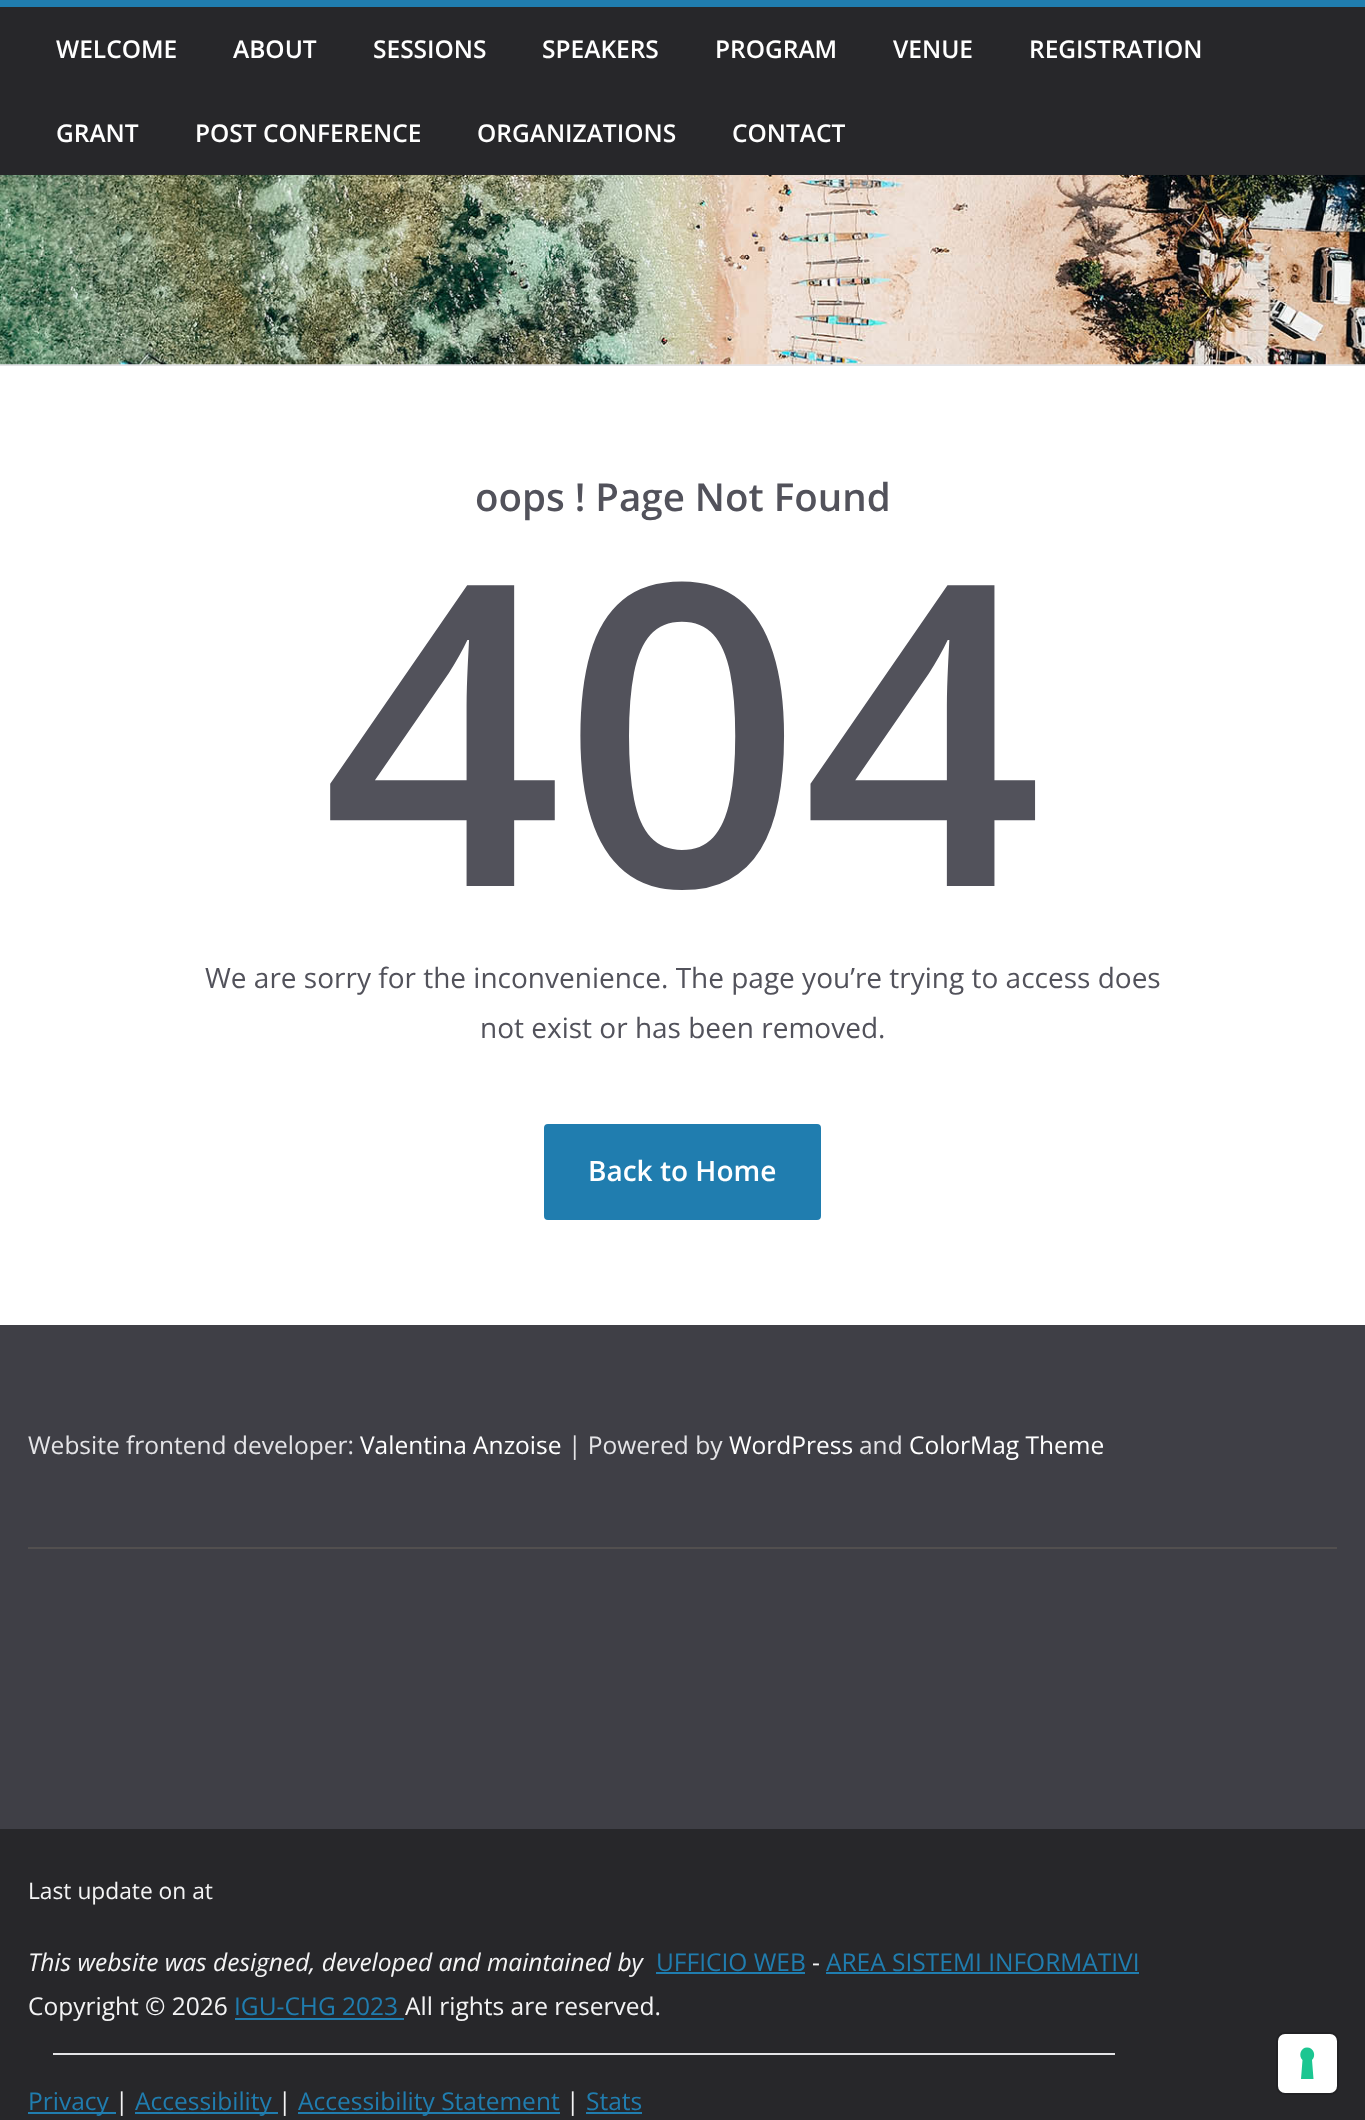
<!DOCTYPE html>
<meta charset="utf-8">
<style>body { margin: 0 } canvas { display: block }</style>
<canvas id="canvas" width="1365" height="2120"></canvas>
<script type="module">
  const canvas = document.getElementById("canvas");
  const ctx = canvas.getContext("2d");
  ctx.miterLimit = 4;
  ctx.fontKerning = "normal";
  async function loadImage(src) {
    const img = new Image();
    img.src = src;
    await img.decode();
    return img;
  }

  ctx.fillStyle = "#ffffff";
  ctx.fillRect(0, 0, 1365, 2120);
  ctx.fillStyle = "#27272a";
  ctx.fillRect(0, 7, 1365, 168);
  ctx.fillStyle = "#207daf";
  ctx.fillRect(0, 0, 1365, 7);
  ctx.font = "600 24.5px Open Sans";
  ctx.fillStyle = "#ffffff";
  ctx.fillText("WELCOME", 56, 58);
  ctx.fillText("ABOUT", 233, 58);
  ctx.fillText("SESSIONS", 373, 58);
  ctx.fillText("SPEAKERS", 542, 58);
  ctx.fillText("PROGRAM", 715, 58);
  ctx.fillText("VENUE", 893, 58);
  ctx.fillText("REGISTRATION", 1029, 58);
  ctx.fillText("GRANT", 56, 142);
  ctx.fillText("POST CONFERENCE", 195, 142);
  ctx.fillText("ORGANIZATIONS", 477, 142);
  ctx.fillText("CONTACT", 732, 142);
  ctx.fillStyle = "#e4e4e7";
  ctx.fillRect(0, 364, 1365, 2);
  ctx.drawImage(await loadImage("img1.png"), 0, 175, 1365, 190);
  ctx.font = "600 38.5px Open Sans";
  ctx.fillStyle = "#52525b";
  ctx.fillText("oops ! Page Not Found", 475, 511);
  ctx.font = "600 420px Open Sans";
  ctx.fillText("404", 322, 886);
  ctx.font = "28px Open Sans";
  ctx.fillText("We are sorry for the inconvenience. The page you’re trying to access does", 205, 988);
  ctx.fillText("not exist or has been removed.", 480, 1038);
  ctx.fillStyle = "#207daf";
  ctx.beginPath();
  ctx.roundRect(545, 1125, 275, 94, 3);
  ctx.fill();
  ctx.strokeStyle = "#207daf";
  ctx.lineWidth = 2;
  ctx.stroke();
  ctx.font = "600 28px Open Sans";
  ctx.fillStyle = "#ffffff";
  ctx.fillText("Back to Home", 588, 1181);
  ctx.fillStyle = "#3f3f46";
  ctx.fillRect(0, 1325, 1365, 504);
  ctx.font = "24.5px Open Sans";
  ctx.fillStyle = "#e4e4e7";
  ctx.fillText("Website frontend developer:", 28, 1454);
  ctx.fillStyle = "#ffffff";
  ctx.fillText("Valentina Anzoise", 360, 1454);
  ctx.fillStyle = "#e4e4e7";
  ctx.fillText("| Powered by", 568, 1454);
  ctx.fillStyle = "#ffffff";
  ctx.fillText("WordPress", 729, 1454);
  ctx.fillStyle = "#e4e4e7";
  ctx.fillText("and", 859, 1454);
  ctx.fillStyle = "#ffffff";
  ctx.fillText("ColorMag Theme", 909, 1454);
  ctx.fillStyle = "#524f4f";
  ctx.fillRect(28, 1547, 1309, 2);
  ctx.fillStyle = "#27272a";
  ctx.fillRect(0, 1829, 1365, 291);
  ctx.font = "22.75px Open Sans";
  ctx.fillStyle = "#f4f4f5";
  ctx.fillText("Last update on at", 28, 1899);
  ctx.font = "italic 24.5px Open Sans";
  ctx.fillText("This website was designed, developed and maintained by", 28, 1971);
  ctx.font = "24.5px Open Sans";
  ctx.fillStyle = "#207daf";
  ctx.fillText("UFFICIO WEB", 656, 1971);
  ctx.fillRect(656, 1972, 149, 2);
  ctx.fillStyle = "#f4f4f5";
  ctx.fillText("-", 812, 1971);
  ctx.fillStyle = "#207daf";
  ctx.fillText("AREA SISTEMI INFORMATIVI", 826, 1971);
  ctx.fillRect(826, 1972, 313, 2);
  ctx.fillStyle = "#f4f4f5";
  ctx.fillText("Copyright © 2026", 28, 2015);
  ctx.fillStyle = "#207daf";
  ctx.fillText("IGU-CHG 2023", 234, 2015);
  ctx.fillRect(235, 2018, 169, 2);
  ctx.fillStyle = "#f4f4f5";
  ctx.fillText("All rights are reserved.", 405, 2015);
  ctx.fillStyle = "#e4e4e7";
  ctx.fillRect(53, 2053, 1062, 2);
  ctx.fillStyle = "#207daf";
  ctx.fillRect(28, 2112, 88, 2);
  ctx.fillText("Privacy", 28, 2110);
  ctx.fillStyle = "#f4f4f5";
  ctx.fillText("|", 115, 2110);
  ctx.fillStyle = "#207daf";
  ctx.fillRect(135, 2112, 143, 2);
  ctx.fillText("Accessibility", 135, 2110);
  ctx.fillStyle = "#f4f4f5";
  ctx.fillText("|", 278, 2110);
  ctx.fillStyle = "#207daf";
  ctx.fillRect(298, 2112, 262, 2);
  ctx.fillText("Accessibility Statement", 298, 2110);
  ctx.fillStyle = "#f4f4f5";
  ctx.fillText("|", 566, 2110);
  ctx.fillStyle = "#207daf";
  ctx.fillText("Stats", 586, 2110);
  ctx.fillRect(586, 2112, 56, 2);
  ctx.beginPath();
  ctx.roundRect(1277, 2033, 61, 61, 8);
  ctx.strokeStyle = "#212124";
  ctx.stroke();
  ctx.fillStyle = "#ffffff";
  ctx.beginPath();
  ctx.roundRect(1278, 2034, 59, 59, 7);
  ctx.fill();
  ctx.fillStyle = "#1cc691";
  ctx.beginPath();
  ctx.moveTo(1307, 2047.5);
  ctx.bezierCurveTo(1313.5, 2047.5, 1316.5, 2055.5, 1312, 2060);
  ctx.lineTo(1313.5, 2079);
  ctx.lineTo(1301, 2079);
  ctx.lineTo(1302.5, 2060);
  ctx.bezierCurveTo(1298, 2055.5, 1301, 2047.5, 1307, 2047.5);
  ctx.closePath();
  ctx.fill("evenodd");
</script>
